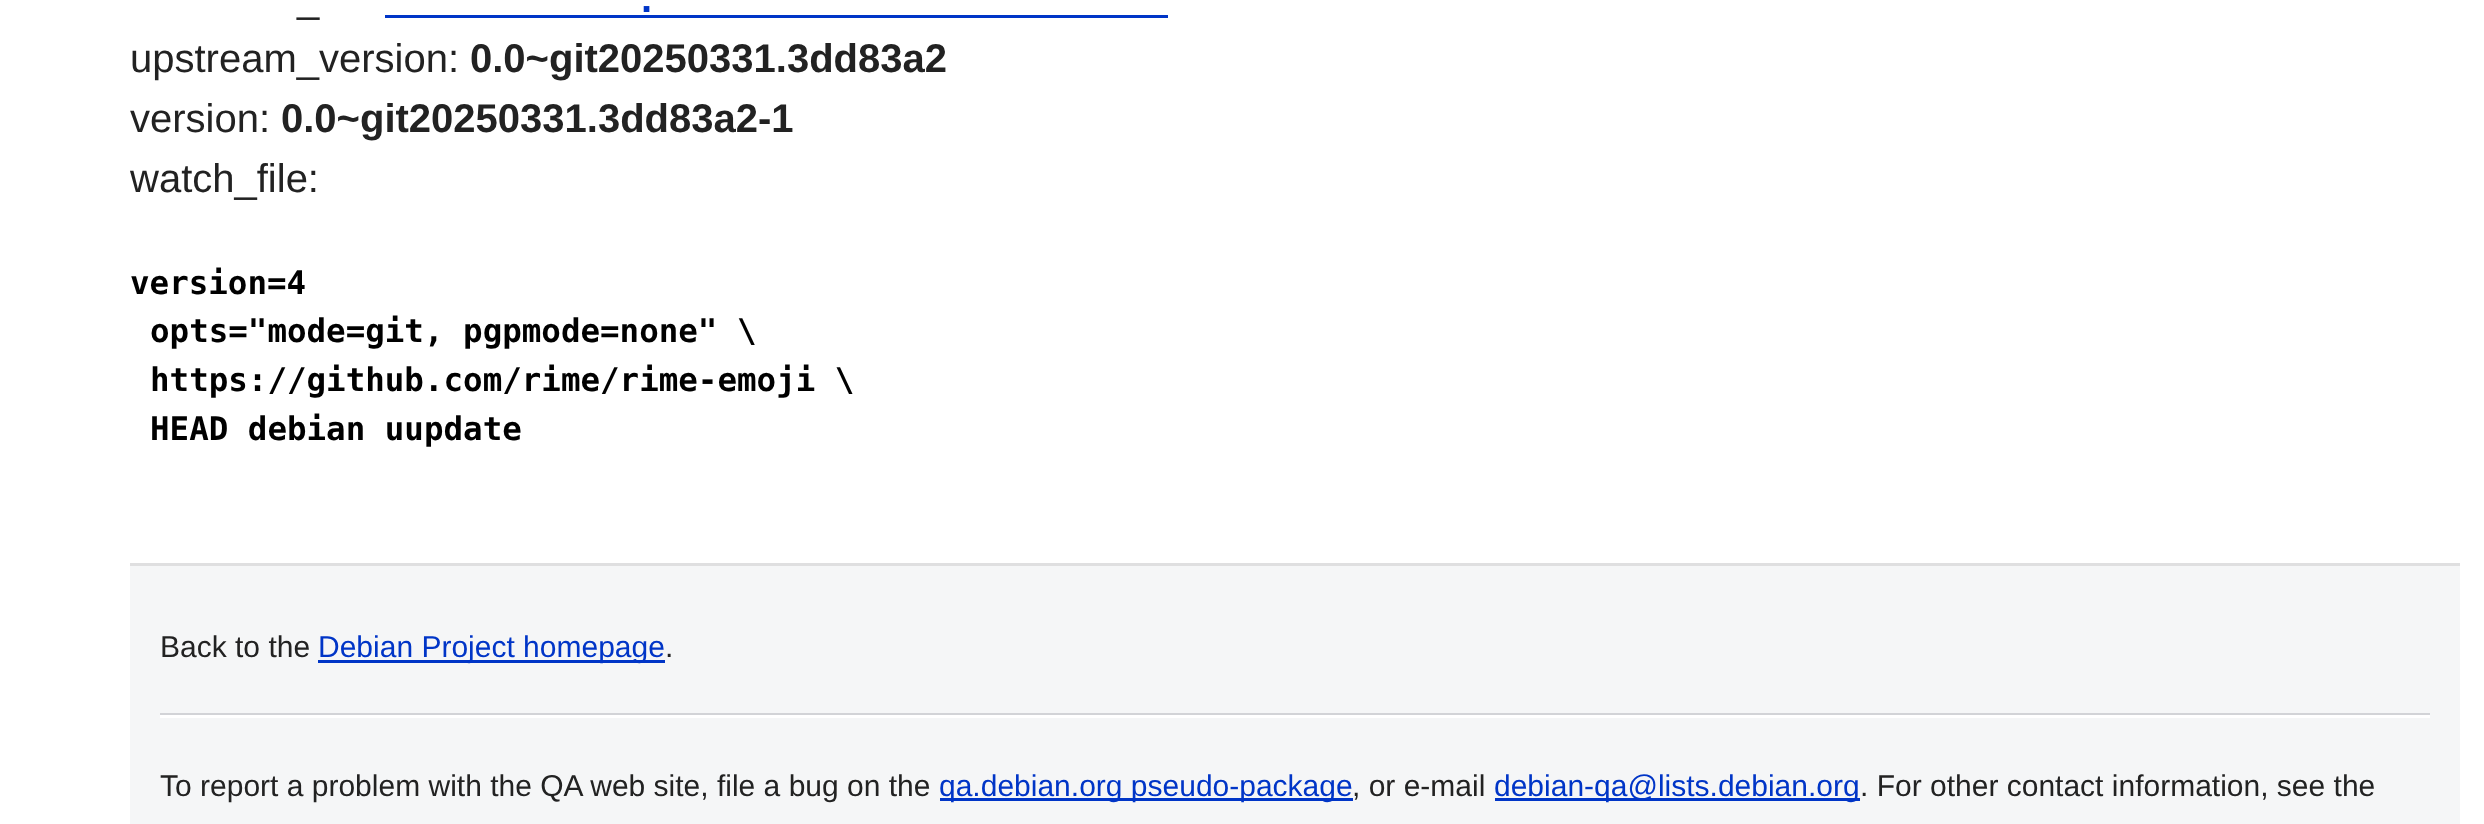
<!DOCTYPE html>
<meta charset="utf-8">
<style>body { margin: 0 } canvas { display: block }</style>
<canvas id="canvas" width="2484" height="824"></canvas>
<script type="module">
  const canvas = document.getElementById("canvas");
  const ctx = canvas.getContext("2d");
  ctx.miterLimit = 4;
  ctx.fontKerning = "normal";

  ctx.fillStyle = "#ffffff";
  ctx.fillRect(0, 0, 2484, 824);
  ctx.font = "bold 40px Liberation Sans";
  ctx.fillStyle = "#0035c7";
  ctx.fillText(".", 641, 12);
  ctx.fillRect(385, 15, 783, 3);
  ctx.font = "40px Liberation Sans";
  ctx.fillStyle = "#222222";
  ctx.fillText("_", 297, 12);
  ctx.fillText("upstream_version:", 130, 72);
  ctx.font = "bold 40px Liberation Sans";
  ctx.fillText("0.0~git20250331.3dd83a2", 470, 72);
  ctx.font = "40px Liberation Sans";
  ctx.fillText("version:", 130, 132);
  ctx.font = "bold 40px Liberation Sans";
  ctx.fillText("0.0~git20250331.3dd83a2-1", 281, 132);
  ctx.font = "40px Liberation Sans";
  ctx.fillText("watch_file:", 130, 192);
  ctx.font = "bold 32.5px DejaVu Sans Mono";
  ctx.fillStyle = "#000000";
  ctx.fillText("version=4", 130, 294);
  ctx.fillText("opts=\"mode=git, pgpmode=none\" \\", 150, 342);
  ctx.fillText("https://github.com/rime/rime-emoji \\", 150, 391);
  ctx.fillText("HEAD debian uupdate", 150, 440);
  ctx.fillStyle = "#f5f6f7";
  ctx.fillRect(130, 566, 2330, 258);
  ctx.fillStyle = "#dfdfe0";
  ctx.fillRect(130, 563, 2330, 3);
  ctx.font = "30px Liberation Sans";
  ctx.fillStyle = "#222222";
  ctx.fillText("Back to the", 160, 657);
  ctx.fillStyle = "#0035c7";
  ctx.fillRect(318, 660, 347, 3);
  ctx.fillText("Debian Project homepage", 318, 657);
  ctx.fillStyle = "#222222";
  ctx.fillText(".", 665, 657);
  ctx.fillStyle = "#d2d3d7";
  ctx.fillRect(160, 713, 2270, 2);
  ctx.fillStyle = "#ffffff";
  ctx.fillRect(160, 715, 2270, 3);
  ctx.fillStyle = "#222222";
  ctx.fillText("To report a problem with the QA web site, file a bug on the", 160, 796);
  ctx.fillStyle = "#0035c7";
  ctx.fillRect(940, 798, 413, 3);
  ctx.fillText("qa.debian.org pseudo-package", 939, 796);
  ctx.fillStyle = "#222222";
  ctx.fillText(", or e-mail", 1352, 796);
  ctx.fillStyle = "#0035c7";
  ctx.fillRect(1495, 798, 365, 3);
  ctx.fillText("debian-qa@lists.debian.org", 1494, 796);
  ctx.fillStyle = "#222222";
  ctx.fillText(". For other contact information, see the", 1860, 796);
</script>
